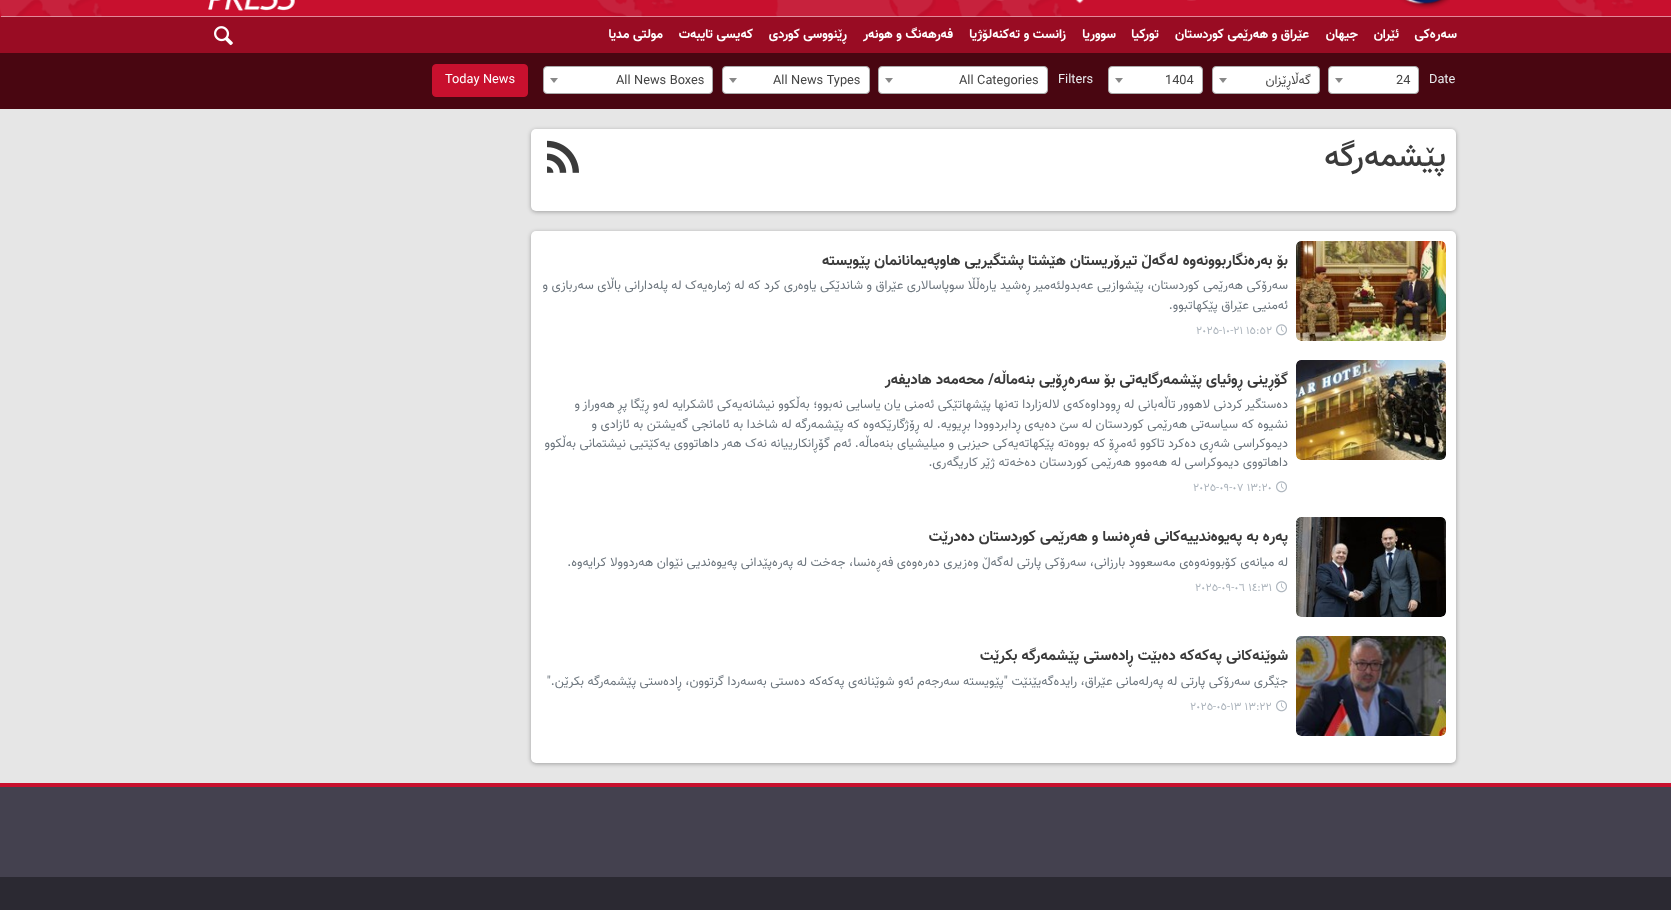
<!DOCTYPE html>
<meta charset="utf-8">
<style>body { margin: 0 } canvas { display: block }</style>
<canvas id="canvas" width="1671" height="910"></canvas>
<script type="module">
  const canvas = document.getElementById("canvas");
  const ctx = canvas.getContext("2d");
  ctx.miterLimit = 4;
  ctx.fontKerning = "normal";
  async function loadImage(src) {
    const img = new Image();
    img.src = src;
    await img.decode();
    return img;
  }

  ctx.fillStyle = "#e6e6e6";
  ctx.fillRect(0, 0, 1671, 910);
  ctx.fillStyle = "#c8102e";
  ctx.fillRect(0, 0, 1671, 17);
  ctx.drawImage(await loadImage("img1.png"), 0, 0, 1633, 17);
  ctx.drawImage(await loadImage("img2.png"), 996, 0, 454, 9);
  ctx.drawImage(await loadImage("img3.png"), 208, 0, 87, 11);
  ctx.fillStyle = "#990c23";
  ctx.fillRect(0, 17, 1671, 36);
  ctx.fillStyle = "rgba(255, 255, 255, 0.5)";
  ctx.fillRect(1, 16, 1670, 1);
  ctx.direction = "rtl";
  ctx.font = "bold 13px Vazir";
  ctx.fillStyle = "#ffffff";
  ctx.fillText("سەرەکی", 1457, 38);
  ctx.fillText("ئێران", 1399, 38);
  ctx.fillText("جیهان", 1358, 38);
  ctx.fillText("عێراق و هەرێمی کوردستان", 1309, 38);
  ctx.fillText("تورکیا", 1159, 38);
  ctx.fillText("سووریا", 1116, 38);
  ctx.fillText("زانست و تەکنەلۆژیا", 1066, 38);
  ctx.fillText("فەرهەنگ و هونەر", 953, 38);
  ctx.fillText("ڕێنووسی کوردی", 847, 38);
  ctx.fillText("کەیسی تایبەت", 753, 38);
  ctx.fillText("مولتی مدیا", 663, 38);
  ctx.drawImage(await loadImage("img4.png"), 214, 26, 19, 20);
  ctx.fillStyle = "#490611";
  ctx.fillRect(0, 53, 1671, 56);
  ctx.direction = "ltr";
  ctx.font = "12.8px Vazir";
  ctx.fillStyle = "#e9ecef";
  ctx.fillText("Date", 1429, 83);
  ctx.fillStyle = "#ffffff";
  ctx.beginPath();
  ctx.roundRect(1328.5, 66.5, 90, 27, 3.5);
  ctx.fill();
  ctx.strokeStyle = "#aaaaaa";
  ctx.stroke();
  ctx.fillStyle = "#444444";
  ctx.fillText("24", 1396, 84);
  ctx.fillStyle = "#888888";
  ctx.beginPath();
  ctx.moveTo(1335, 78);
  ctx.lineTo(1343, 78);
  ctx.lineTo(1339, 83);
  ctx.closePath();
  ctx.fill();
  ctx.fillStyle = "#ffffff";
  ctx.beginPath();
  ctx.roundRect(1212.5, 66.5, 107, 27, 3.5);
  ctx.fill();
  ctx.stroke();
  ctx.direction = "rtl";
  ctx.fillStyle = "#444444";
  ctx.fillText("گەڵاڕێزان", 1311, 84);
  ctx.fillStyle = "#888888";
  ctx.beginPath();
  ctx.moveTo(1219, 78);
  ctx.lineTo(1227, 78);
  ctx.lineTo(1223, 83);
  ctx.closePath();
  ctx.fill();
  ctx.fillStyle = "#ffffff";
  ctx.beginPath();
  ctx.roundRect(1108.5, 66.5, 94, 27, 3.5);
  ctx.fill();
  ctx.stroke();
  ctx.direction = "ltr";
  ctx.fillStyle = "#444444";
  ctx.fillText("1404", 1165, 84);
  ctx.fillStyle = "#888888";
  ctx.beginPath();
  ctx.moveTo(1115, 78);
  ctx.lineTo(1123, 78);
  ctx.lineTo(1119, 83);
  ctx.closePath();
  ctx.fill();
  ctx.fillStyle = "#e9ecef";
  ctx.fillText("Filters", 1058, 83);
  ctx.fillStyle = "#ffffff";
  ctx.beginPath();
  ctx.roundRect(878.5, 66.5, 169, 27, 3.5);
  ctx.fill();
  ctx.stroke();
  ctx.fillStyle = "#444444";
  ctx.fillText("All Categories", 959, 84);
  ctx.fillStyle = "#888888";
  ctx.beginPath();
  ctx.moveTo(885, 78);
  ctx.lineTo(893, 78);
  ctx.lineTo(889, 83);
  ctx.closePath();
  ctx.fill();
  ctx.fillStyle = "#ffffff";
  ctx.beginPath();
  ctx.roundRect(722.5, 66.5, 147, 27, 3.5);
  ctx.fill();
  ctx.stroke();
  ctx.fillStyle = "#444444";
  ctx.fillText("All News Types", 773, 84);
  ctx.fillStyle = "#888888";
  ctx.beginPath();
  ctx.moveTo(729, 78);
  ctx.lineTo(737, 78);
  ctx.lineTo(733, 83);
  ctx.closePath();
  ctx.fill();
  ctx.fillStyle = "#ffffff";
  ctx.beginPath();
  ctx.roundRect(543.5, 66.5, 169, 27, 3.5);
  ctx.fill();
  ctx.stroke();
  ctx.fillStyle = "#444444";
  ctx.fillText("All News Boxes", 616, 84);
  ctx.fillStyle = "#888888";
  ctx.beginPath();
  ctx.moveTo(550, 78);
  ctx.lineTo(558, 78);
  ctx.lineTo(554, 83);
  ctx.closePath();
  ctx.fill();
  ctx.fillStyle = "#c8102e";
  ctx.beginPath();
  ctx.roundRect(432.5, 64.5, 95, 32, 3.5);
  ctx.fill();
  ctx.strokeStyle = "#c8102e";
  ctx.stroke();
  ctx.fillStyle = "#ffffff";
  ctx.fillText("Today News", 445, 83);
  ctx.fillStyle = "rgba(0, 0, 0, 0.3)";
  ctx.filter = "blur(2px)";
  ctx.beginPath();
  ctx.roundRect(531, 130, 925, 82, 5);
  ctx.fill();
  ctx.filter = "none";
  ctx.fillStyle = "#ffffff";
  ctx.beginPath();
  ctx.roundRect(531, 129, 925, 82, 5);
  ctx.fill();
  ctx.direction = "rtl";
  ctx.font = "500 32px Vazir";
  ctx.fillStyle = "#3b3b3b";
  ctx.fillText("پێشمەرگە", 1446, 166);
  ctx.drawImage(await loadImage("img5.png"), 547, 140, 32, 33);
  ctx.fillStyle = "rgba(0, 0, 0, 0.3)";
  ctx.filter = "blur(2px)";
  ctx.beginPath();
  ctx.roundRect(531, 232, 925, 532, 5);
  ctx.fill();
  ctx.filter = "none";
  ctx.fillStyle = "#ffffff";
  ctx.beginPath();
  ctx.roundRect(531, 231, 925, 532, 5);
  ctx.fill();
  ctx.drawImage(await loadImage("img6.png"), 1296, 241, 150, 100);
  ctx.font = "bold 15.2px Vazir";
  ctx.fillStyle = "#3b3b3b";
  ctx.fillText("بۆ بەرەنگاربوونەوە لەگەڵ تیرۆریستان هێشتا پشتگیریی هاوپه‌یمانانمان پێویستە", 1288, 265);
  ctx.font = "12.8px Vazir";
  ctx.fillStyle = "#6c757d";
  ctx.fillText("سه‌رۆکی هه‌رێمی کوردستان، پێشوازیی عه‌بدولئه‌مير ڕه‌شيد ياره‌ڵڵا سوپاسالاری عێراق و شاندێکی یاوه‌ری کرد که‌ له‌ ژماره‌یه‌ک له‌ پله‌دارانی باڵای سه‌ربازی و", 1288, 289);
  ctx.fillText("ئه‌منیی عێراق پێکهاتبوو.", 1288, 309);
  ctx.drawImage(await loadImage("img7.png"), 1276, 324, 11, 12);
  ctx.direction = "ltr";
  ctx.font = "11.25px Vazir";
  ctx.fillStyle = "#adb5bd";
  ctx.fillText("١٥:٥٢ ٢١-١٠-٢٠٢٥", 1196, 334);
  ctx.drawImage(await loadImage("img8.png"), 1296, 360, 150, 100);
  ctx.direction = "rtl";
  ctx.font = "bold 15.2px Vazir";
  ctx.fillStyle = "#3b3b3b";
  ctx.fillText("گۆڕینی ڕوئیای پێشمەرگایەتی بۆ سەرەڕۆیی بنەماڵە/ محەمەد هادیفەر", 1288, 384);
  ctx.font = "12.8px Vazir";
  ctx.fillStyle = "#6c757d";
  ctx.fillText("دەستگیر کردنی لاهوور تاڵەبانی لە ڕووداوەکەی لالەزاردا تەنها پێشهاتێکی ئەمنی یان یاسایی نەبوو؛ بەڵکوو نیشانەیەکی ئاشکرایە لەو ڕێگا پڕ هەوراز و", 1288, 408);
  ctx.fillText("نشیوە کە سیاسەتی هەرێمی کوردستان لە سێ دەیەی ڕدابردوودا بڕیویە. لە ڕۆژگارێکەوە کە پێشمەرگە لە شاخدا بە ئامانجی گەیشتن بە ئازادی و", 1288, 428);
  ctx.fillText("دیموکراسی شەڕی دەکرد تاکوو ئەمڕۆ کە بووەتە پێکهاتەیەکی حیزبی و میلیشیای بنەماڵە. ئەم گۆڕانکارییانە نەک هەر داهاتووی یەکێتیی نیشتمانی بەڵکوو", 1288, 447);
  ctx.fillText("داهاتووی دیموکراسی لە هەموو هەرێمی کوردستان دەخەتە ژێر کاریگەری.", 1288, 466);
  ctx.drawImage(await loadImage("img7.png"), 1276, 481, 11, 12);
  ctx.direction = "ltr";
  ctx.font = "11.25px Vazir";
  ctx.fillStyle = "#adb5bd";
  ctx.fillText("١٣:٢٠ ٠٧-٠٩-٢٠٢٥", 1193, 491);
  ctx.drawImage(await loadImage("img9.png"), 1296, 517, 150, 100);
  ctx.direction = "rtl";
  ctx.font = "bold 15.2px Vazir";
  ctx.fillStyle = "#3b3b3b";
  ctx.fillText("پەرە بە پەیوەندییەکانی فەڕەنسا و هەرێمی کوردستان دەدرێت", 1288, 541);
  ctx.font = "12.8px Vazir";
  ctx.fillStyle = "#6c757d";
  ctx.fillText("لە میانەی كۆبوونەوەی مەسعوود بارزانی، سەرۆكی پارتی لەگەڵ وەزیری دەرەوەی فەڕەنسا، جەخت لە پەرەپێدانی پەیوەندیی نێوان هەردوولا کرایەوە.", 1288, 566);
  ctx.drawImage(await loadImage("img7.png"), 1276, 581, 11, 12);
  ctx.direction = "ltr";
  ctx.font = "11.25px Vazir";
  ctx.fillStyle = "#adb5bd";
  ctx.fillText("١٤:٣١ ٠٦-٠٩-٢٠٢٥", 1195, 591);
  ctx.drawImage(await loadImage("img10.png"), 1296, 636, 150, 100);
  ctx.direction = "rtl";
  ctx.font = "bold 15.2px Vazir";
  ctx.fillStyle = "#3b3b3b";
  ctx.fillText("شوێنەکانی پەکەکە دەبێت ڕادەستی پێشمەرگە بکرێت", 1288, 660);
  ctx.font = "12.8px Vazir";
  ctx.fillStyle = "#6c757d";
  ctx.fillText("جێگری سەرۆکی پارتی لە پەرلەمانی عێراق، رایدەگەیێنێت \"پێویستە سەرجەم ئەو شوێنانەی پەکەکە دەستی بەسەردا گرتوون، ڕادەستی پێشمەرگە بکرێن.\"", 1288, 685);
  ctx.drawImage(await loadImage("img7.png"), 1276, 700, 11, 12);
  ctx.direction = "ltr";
  ctx.font = "11.25px Vazir";
  ctx.fillStyle = "#adb5bd";
  ctx.fillText("١٣:٢٢ ١٣-٠٥-٢٠٢٥", 1190, 710);
  ctx.fillStyle = "#44414f";
  ctx.fillRect(0, 787, 1671, 90);
  ctx.fillStyle = "#c8102e";
  ctx.fillRect(0, 783, 1671, 4);
  ctx.fillStyle = "#2b2932";
  ctx.fillRect(0, 877, 1671, 33);
</script>
